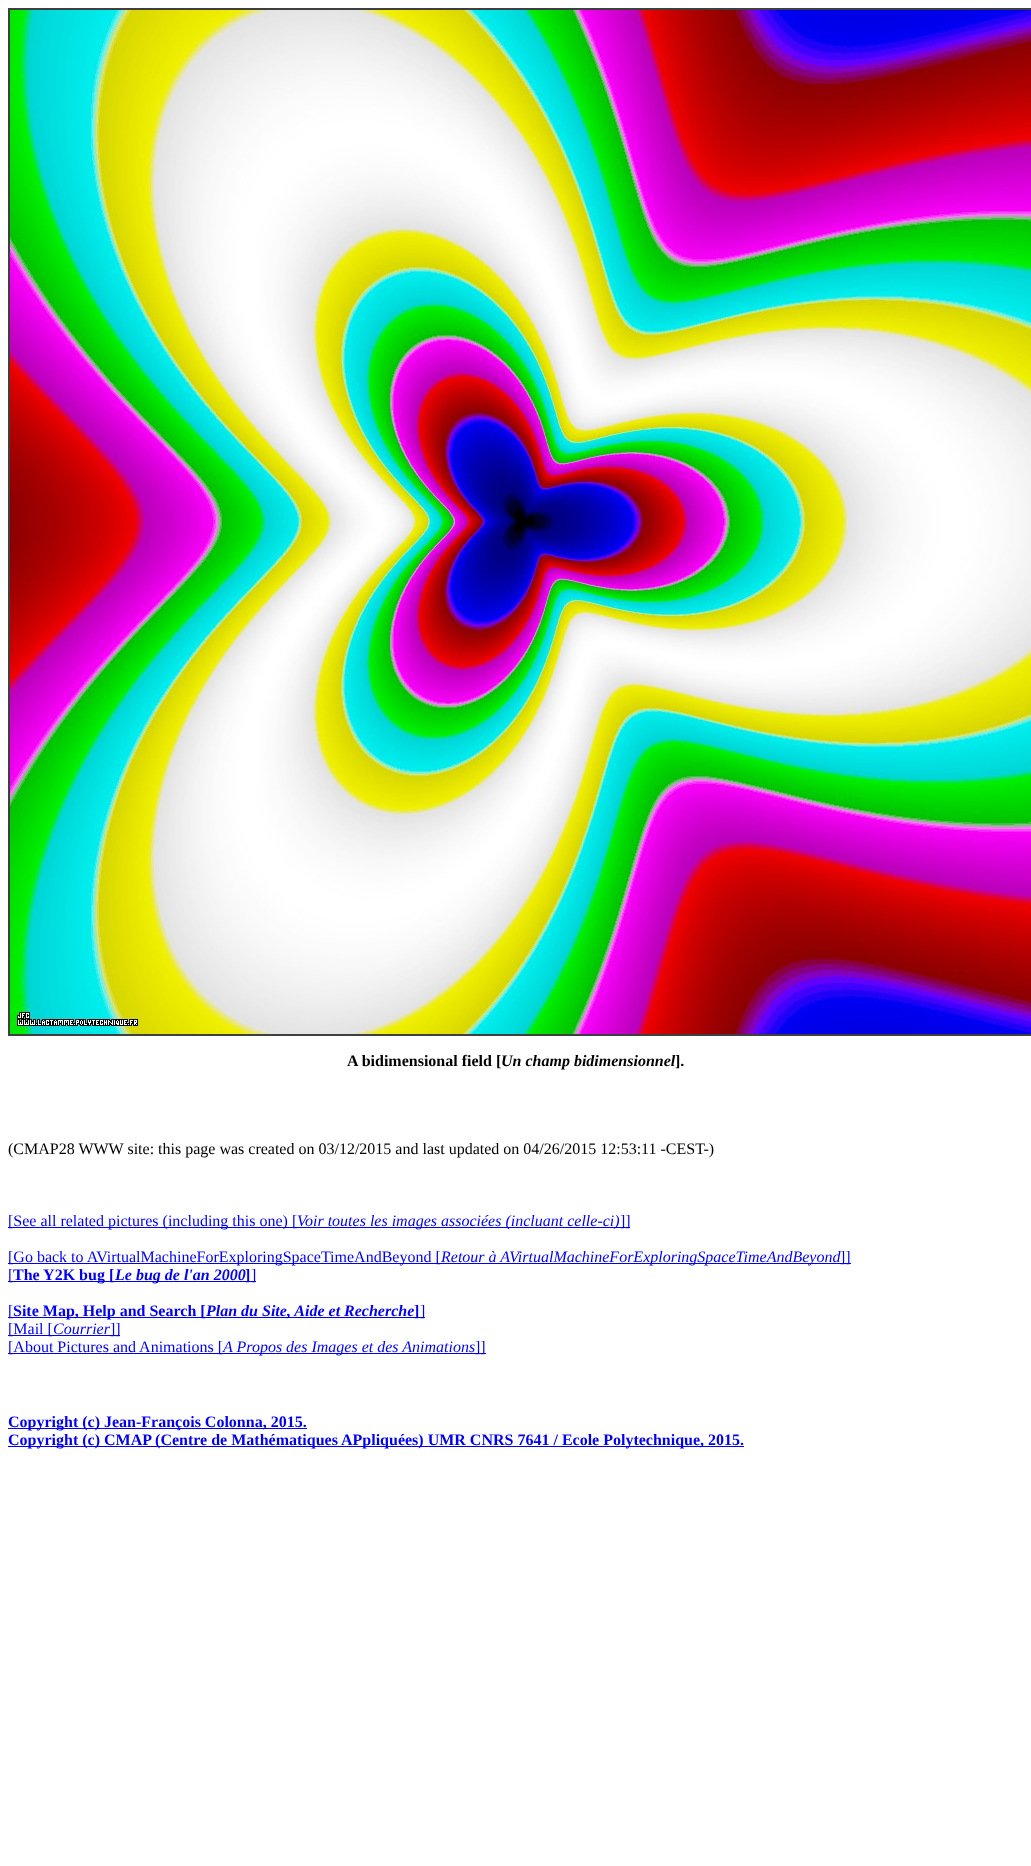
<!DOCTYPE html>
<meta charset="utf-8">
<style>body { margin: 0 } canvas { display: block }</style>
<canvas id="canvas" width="1031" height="1866"></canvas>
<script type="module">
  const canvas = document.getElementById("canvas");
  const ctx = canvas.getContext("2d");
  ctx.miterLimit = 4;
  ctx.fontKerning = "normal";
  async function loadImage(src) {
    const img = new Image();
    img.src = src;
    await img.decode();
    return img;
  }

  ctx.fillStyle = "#ffffff";
  ctx.fillRect(0, 0, 1031, 1866);
  ctx.strokeStyle = "#3f3f3f";
  ctx.lineWidth = 2;
  ctx.strokeRect(9, 9, 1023, 1026);
  ctx.drawImage(await loadImage("img1.png"), 10, 10, 1021, 1024);
  ctx.font = "bold 16px Liberation Serif";
  ctx.fillStyle = "#000000";
  ctx.fillText("A bidimensional field [", 347, 1066);
  ctx.font = "italic bold 16px Liberation Serif";
  ctx.fillText("Un champ bidimensionnel", 501, 1066);
  ctx.font = "bold 16px Liberation Serif";
  ctx.fillText("].", 675, 1066);
  ctx.font = "16px Liberation Serif";
  ctx.fillText("(CMAP28 WWW site: this page was created on 03/12/2015 and last updated on 04/26/2015 12:53:11 -CEST-)", 8, 1154);
  ctx.fillStyle = "#0000ee";
  ctx.fillRect(8, 1227, 622, 1);
  ctx.fillText("[See all related pictures (including this one) [", 8, 1226);
  ctx.font = "italic 16px Liberation Serif";
  ctx.fillText("Voir toutes les images associées (incluant celle-ci)", 297, 1226);
  ctx.font = "16px Liberation Serif";
  ctx.fillText("]]", 620, 1226);
  ctx.fillRect(8, 1263, 832, 1);
  ctx.fillText("[Go back to AVirtualMachineForExploringSpaceTimeAndBeyond [", 8, 1262);
  ctx.font = "italic 16px Liberation Serif";
  ctx.fillText("Retour à AVirtualMachineForExploringSpaceTimeAndBeyond", 441, 1262);
  ctx.fillRect(840, 1263, 11, 1);
  ctx.font = "16px Liberation Serif";
  ctx.fillText("]]", 840, 1262);
  ctx.fillRect(8, 1281, 248, 1);
  ctx.fillText("[", 8, 1280);
  ctx.font = "bold 16px Liberation Serif";
  ctx.fillText("The Y2K bug [", 13, 1280);
  ctx.font = "italic bold 16px Liberation Serif";
  ctx.fillText("Le bug de l'an 2000", 115, 1280);
  ctx.font = "bold 16px Liberation Serif";
  ctx.fillText("]", 245, 1280);
  ctx.font = "16px Liberation Serif";
  ctx.fillText("]", 251, 1280);
  ctx.fillRect(8, 1317, 417, 1);
  ctx.fillText("[", 8, 1316);
  ctx.font = "bold 16px Liberation Serif";
  ctx.fillText("Site Map, Help and Search [", 13, 1316);
  ctx.font = "italic bold 16px Liberation Serif";
  ctx.fillText("Plan du Site, Aide et Recherche", 206, 1316);
  ctx.font = "bold 16px Liberation Serif";
  ctx.fillText("]", 414, 1316);
  ctx.font = "16px Liberation Serif";
  ctx.fillText("]", 420, 1316);
  ctx.fillRect(8, 1335, 112, 1);
  ctx.fillText("[Mail [", 8, 1334);
  ctx.font = "italic 16px Liberation Serif";
  ctx.fillText("Courrier", 53, 1334);
  ctx.font = "16px Liberation Serif";
  ctx.fillText("]]", 110, 1334);
  ctx.fillRect(8, 1353, 478, 1);
  ctx.fillText("[About Pictures and Animations [", 8, 1352);
  ctx.font = "italic 16px Liberation Serif";
  ctx.fillText("A Propos des Images et des Animations", 223, 1352);
  ctx.font = "16px Liberation Serif";
  ctx.fillText("]]", 475, 1352);
  ctx.fillRect(8, 1428, 299, 1);
  ctx.font = "bold 16px Liberation Serif";
  ctx.fillText("Copyright (c) Jean-François Colonna, 2015.", 8, 1427);
  ctx.fillRect(8, 1446, 736, 1);
  ctx.fillText("Copyright (c) CMAP (Centre de Mathématiques APpliquées) UMR CNRS 7641 / Ecole Polytechnique, 2015.", 8, 1445);
</script>
